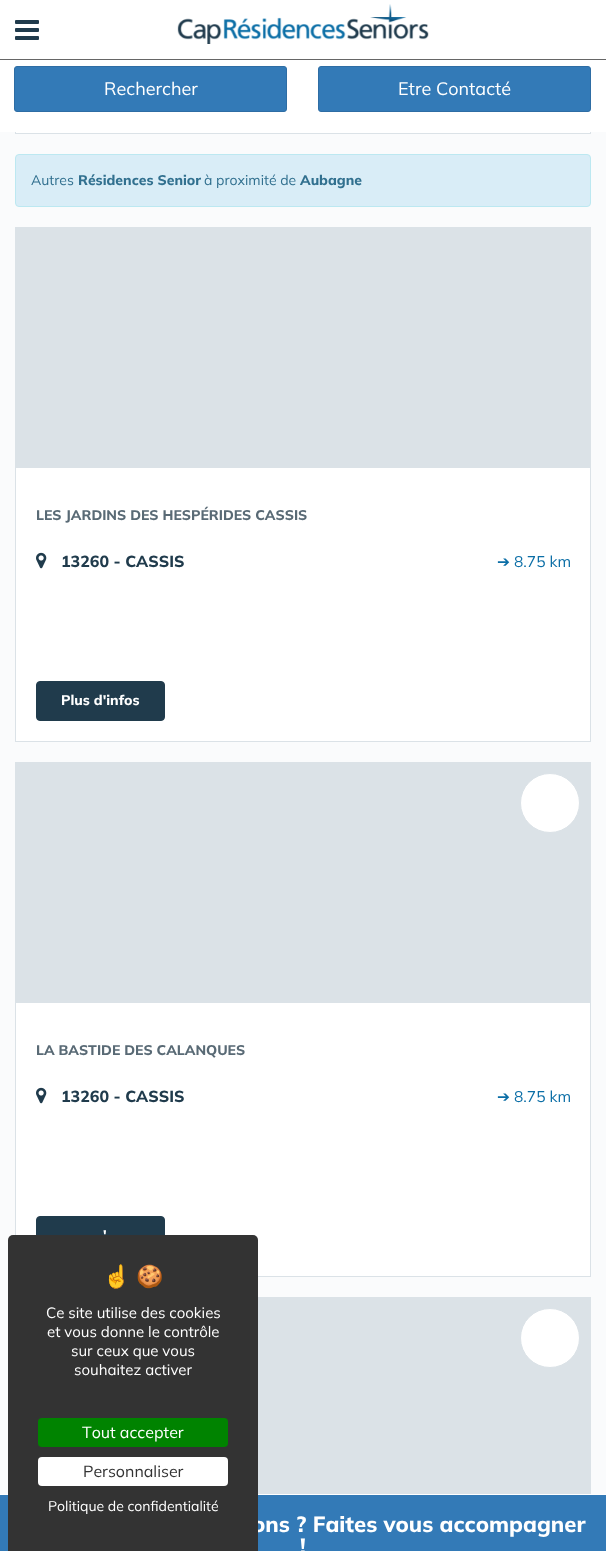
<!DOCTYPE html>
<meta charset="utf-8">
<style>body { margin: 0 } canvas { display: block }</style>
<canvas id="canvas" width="606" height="1551"></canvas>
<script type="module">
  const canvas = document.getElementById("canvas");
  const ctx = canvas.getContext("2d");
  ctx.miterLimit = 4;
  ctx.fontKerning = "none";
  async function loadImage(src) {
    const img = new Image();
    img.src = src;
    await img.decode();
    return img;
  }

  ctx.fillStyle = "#fafbfc";
  ctx.fillRect(0, 0, 606, 1551);
  ctx.fillStyle = "#ffffff";
  ctx.fillRect(16, 132, 574, 1);
  ctx.strokeStyle = "#dbe2e7";
  ctx.strokeRect(15.5, -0.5, 575, 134);
  ctx.fillRect(0, 0, 606, 59);
  ctx.fillStyle = "#666666";
  ctx.fillRect(0, 59, 606, 1);
  ctx.drawImage(await loadImage("img1.png"), 15, 20, 24, 20);
  ctx.drawImage(await loadImage("img2.png"), 177, 4, 252, 40);
  ctx.fillStyle = "#ffffff";
  ctx.fillRect(0, 60, 606, 72);
  ctx.fillStyle = "#337ab7";
  ctx.beginPath();
  ctx.roundRect(14.5, 66.5, 272, 45, 2.5);
  ctx.fill();
  ctx.strokeStyle = "#2e6da4";
  ctx.stroke();
  ctx.font = "200 18px Mulish";
  ctx.fillStyle = "#ffffff";
  ctx.fillText("Rechercher", 104, 95);
  ctx.fillStyle = "#337ab7";
  ctx.beginPath();
  ctx.roundRect(318.5, 66.5, 272, 45, 2.5);
  ctx.fill();
  ctx.stroke();
  ctx.fillStyle = "#ffffff";
  ctx.fillText("Etre Contacté", 398, 95);
  ctx.fillStyle = "#d9edf7";
  ctx.beginPath();
  ctx.roundRect(15.5, 154.5, 575, 52, 3.5);
  ctx.fill();
  ctx.strokeStyle = "#bce8f1";
  ctx.stroke();
  ctx.font = "200 14px Mulish";
  ctx.fillStyle = "#31708f";
  ctx.fillText("Autres", 31, 185);
  ctx.font = "200 14px 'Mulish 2'";
  ctx.fillText("Résidences Senior", 78, 185);
  ctx.font = "200 14px Mulish";
  ctx.fillText("à proximité de", 204, 185);
  ctx.font = "200 14px 'Mulish 2'";
  ctx.fillText("Aubagne", 300, 185);
  ctx.fillStyle = "#ffffff";
  ctx.fillRect(16, 468, 574, 273);
  ctx.strokeStyle = "#dbe2e7";
  ctx.strokeRect(15.5, 227.5, 575, 514);
  ctx.fillStyle = "#dbe2e7";
  ctx.fillRect(16, 228, 574, 240);
  ctx.fillStyle = "#596a75";
  ctx.fillText("LES JARDINS DES HESPÉRIDES CASSIS", 36, 520);
  ctx.drawImage(await loadImage("img3.png"), 36, 552, 11, 17);
  ctx.font = "200 16px 'Mulish 2'";
  ctx.fillStyle = "#203b4c";
  ctx.fillText("13260 - CASSIS", 61, 567);
  ctx.font = "15.5px DejaVu Sans";
  ctx.fillStyle = "#0b6ea6";
  ctx.fillText("➔", 497, 567);
  ctx.font = "200 15.5px Mulish";
  ctx.fillText("8.75 km", 514, 567);
  ctx.fillStyle = "#203b4c";
  ctx.beginPath();
  ctx.roundRect(36.5, 681.5, 128, 39, 3.5);
  ctx.fill();
  ctx.strokeStyle = "#203b4c";
  ctx.stroke();
  ctx.font = "200 14px 'Mulish 2'";
  ctx.fillStyle = "#ffffff";
  ctx.fillText("Plus d'infos", 61, 705);
  ctx.fillRect(16, 1003, 574, 273);
  ctx.strokeStyle = "#dbe2e7";
  ctx.strokeRect(15.5, 762.5, 575, 514);
  ctx.fillStyle = "#dbe2e7";
  ctx.fillRect(16, 763, 574, 240);
  ctx.fillStyle = "#ffffff";
  ctx.beginPath();
  ctx.arc(550, 803, 29.5, 0, Math.PI * 2);
  ctx.fill();
  ctx.stroke();
  ctx.fillStyle = "#596a75";
  ctx.fillText("LA BASTIDE DES CALANQUES", 36, 1055);
  ctx.drawImage(await loadImage("img3.png"), 36, 1087, 11, 17);
  ctx.font = "200 16px 'Mulish 2'";
  ctx.fillStyle = "#203b4c";
  ctx.fillText("13260 - CASSIS", 61, 1102);
  ctx.font = "15.5px DejaVu Sans";
  ctx.fillStyle = "#0b6ea6";
  ctx.fillText("➔", 497, 1102);
  ctx.font = "200 15.5px Mulish";
  ctx.fillText("8.75 km", 514, 1102);
  ctx.fillStyle = "#203b4c";
  ctx.beginPath();
  ctx.roundRect(36.5, 1216.5, 128, 39, 3.5);
  ctx.fill();
  ctx.strokeStyle = "#203b4c";
  ctx.stroke();
  ctx.font = "200 14px 'Mulish 2'";
  ctx.fillStyle = "#ffffff";
  ctx.fillText("'", 103, 1240);
  ctx.strokeStyle = "#dbe2e7";
  ctx.strokeRect(15.5, 1297.5, 575, 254);
  ctx.fillStyle = "#dbe2e7";
  ctx.fillRect(258, 1298, 332, 196);
  ctx.fillStyle = "#ffffff";
  ctx.beginPath();
  ctx.arc(550, 1338, 29.5, 0, Math.PI * 2);
  ctx.fill();
  ctx.stroke();
  ctx.fillStyle = "#337ab7";
  ctx.fillRect(0, 1495, 606, 56);
  ctx.fillStyle = "#ffffff";
  ctx.fillRect(0, 1494, 606, 1);
  ctx.font = "200 22px 'Mulish 2'";
  ctx.fillText("ons ? Faites vous accompagner", 252, 1532);
  ctx.fillStyle = "#333333";
  ctx.beginPath();
  ctx.roundRect(8, 1235, 250, 316, [5, 5, 0, 0]);
  ctx.fill();
  ctx.font = "22px Noto Color Emoji";
  ctx.fillStyle = "#ffffff";
  ctx.fillText("☝️", 103, 1284);
  ctx.fillText("🍪", 136, 1284);
  ctx.font = "200 15px Mulish";
  ctx.fillText("Ce site utilise des cookies", 46, 1318);
  ctx.fillText("et vous donne le contrôle", 47, 1337);
  ctx.fillText("sur ceux que vous", 71, 1356);
  ctx.fillText("souhaitez activer", 74, 1375);
  ctx.fillStyle = "#008300";
  ctx.beginPath();
  ctx.roundRect(38, 1418, 190, 29, 4);
  ctx.fill();
  ctx.font = "200 16px Mulish";
  ctx.fillStyle = "#ffffff";
  ctx.fillText("Tout accepter", 82, 1438);
  ctx.beginPath();
  ctx.roundRect(38, 1457, 190, 29, 4);
  ctx.fill();
  ctx.fillStyle = "#333333";
  ctx.fillText("Personnaliser", 83, 1477);
  ctx.font = "200 14px Mulish";
  ctx.fillStyle = "#ffffff";
  ctx.fillText("Politique de confidentialité", 48, 1511);
  ctx.font = "200 22px 'Mulish 2'";
  ctx.fillText("!", 300, 1554);
</script>
